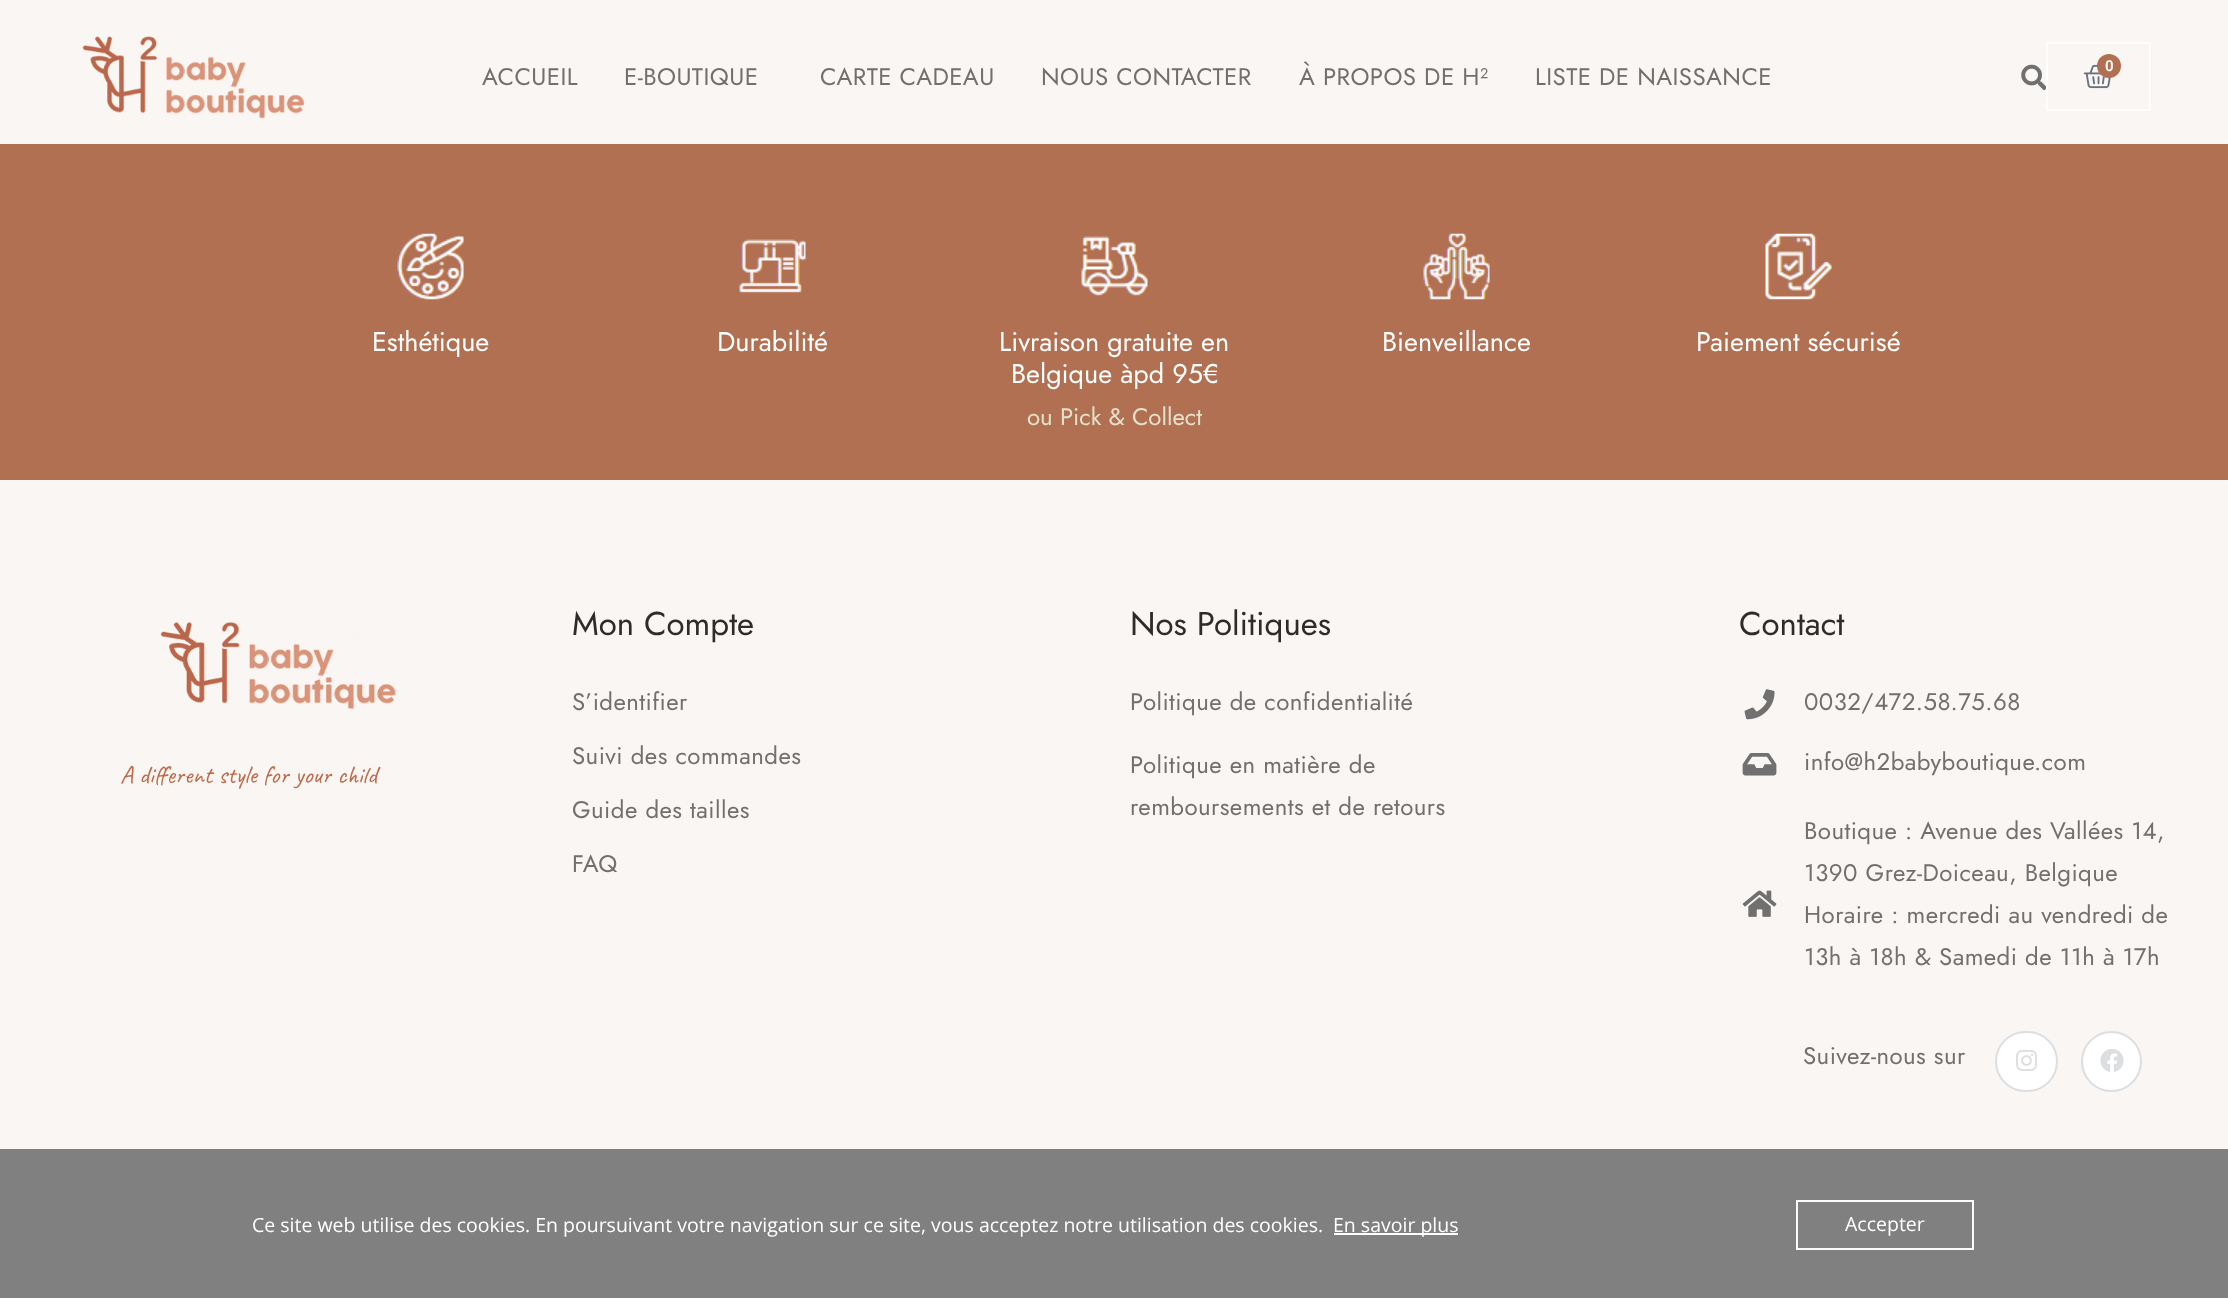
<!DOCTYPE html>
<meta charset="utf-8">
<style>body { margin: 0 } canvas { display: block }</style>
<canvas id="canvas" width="2228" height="1298"></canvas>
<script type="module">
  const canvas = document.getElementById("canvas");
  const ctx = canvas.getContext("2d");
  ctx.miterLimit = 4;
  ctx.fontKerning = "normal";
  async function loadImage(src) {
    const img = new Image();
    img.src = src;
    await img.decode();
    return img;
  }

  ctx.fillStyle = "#808080";
  ctx.fillRect(0, 0, 2228, 1298);
  ctx.fillStyle = "#faf6f3";
  ctx.fillRect(0, 0, 2228, 144);
  ctx.drawImage(await loadImage("img1.png"), 82, 36, 223, 83);
  ctx.letterSpacing = "0.45px";
  ctx.font = "24px Jost";
  ctx.fillStyle = "#707070";
  ctx.fillText("ACCUEIL", 482, 85);
  ctx.fillText("E-BOUTIQUE", 624, 85);
  ctx.fillText("CARTE CADEAU", 820, 85);
  ctx.fillText("NOUS CONTACTER", 1041, 85);
  ctx.fillText("À PROPOS DE H²", 1299, 85);
  ctx.fillText("LISTE DE NAISSANCE", 1535, 85);
  ctx.drawImage(await loadImage("img2.png"), 2021, 64, 25, 27);
  ctx.strokeStyle = "#ffffff";
  ctx.lineWidth = 2;
  ctx.strokeRect(2047, 43, 103, 67);
  ctx.drawImage(await loadImage("img3.png"), 2083, 64, 28, 25);
  ctx.fillStyle = "#b17052";
  ctx.beginPath();
  ctx.arc(2109, 66, 12, 0, Math.PI * 2);
  ctx.fill();
  ctx.letterSpacing = "0px";
  ctx.font = "600 15px Roboto";
  ctx.fillStyle = "#ffffff";
  ctx.fillText("0", 2105, 71);
  ctx.fillStyle = "#b17052";
  ctx.fillRect(0, 144, 2228, 336);
  ctx.drawImage(await loadImage("img4.png"), 397, 233, 67, 67);
  ctx.font = "27px Jost";
  ctx.fillStyle = "#ffffff";
  ctx.fillText("Esthétique", 372, 351);
  ctx.drawImage(await loadImage("img5.png"), 739, 239, 67, 54);
  ctx.fillText("Durabilité", 717, 351);
  ctx.drawImage(await loadImage("img6.png"), 1081, 236, 67, 60);
  ctx.fillText("Livraison gratuite en", 999, 351);
  ctx.fillText("Belgique àpd 95€", 1011, 383);
  ctx.font = "24px Jost";
  ctx.fillStyle = "#e3e1ca";
  ctx.fillText("ou Pick & Collect", 1027, 425);
  ctx.drawImage(await loadImage("img7.png"), 1423, 233, 67, 67);
  ctx.font = "27px Jost";
  ctx.fillStyle = "#ffffff";
  ctx.fillText("Bienveillance", 1382, 351);
  ctx.drawImage(await loadImage("img8.png"), 1765, 233, 67, 67);
  ctx.fillText("Paiement sécurisé", 1696, 351);
  ctx.fillStyle = "#faf6f3";
  ctx.fillRect(0, 480, 2228, 669);
  ctx.drawImage(await loadImage("img9.png"), 160, 622, 236, 87);
  ctx.font = "25.5px Caveat";
  ctx.fillStyle = "#bc6c4c";
  ctx.fillText("A different style for your child", 120, 783);
  ctx.font = "33px Jost";
  ctx.fillStyle = "#2c2c2c";
  ctx.fillText("Mon Compte", 572, 635);
  ctx.letterSpacing = "0.45px";
  ctx.font = "24px Jost";
  ctx.fillStyle = "#707070";
  ctx.fillText("S’identifier", 572, 710);
  ctx.fillText("Suivi des commandes", 572, 764);
  ctx.fillText("Guide des tailles", 572, 818);
  ctx.fillText("FAQ", 572, 872);
  ctx.letterSpacing = "0px";
  ctx.font = "33px Jost";
  ctx.fillStyle = "#2c2c2c";
  ctx.fillText("Nos Politiques", 1130, 635);
  ctx.letterSpacing = "0.45px";
  ctx.font = "24px Jost";
  ctx.fillStyle = "#707070";
  ctx.fillText("Politique de confidentialité", 1130, 710);
  ctx.fillText("Politique en matière de", 1130, 773);
  ctx.fillText("remboursements et de retours", 1130, 815);
  ctx.letterSpacing = "0px";
  ctx.font = "33px Jost";
  ctx.fillStyle = "#2c2c2c";
  ctx.fillText("Contact", 1739, 635);
  ctx.drawImage(await loadImage("img10.png"), 1744, 689, 31, 31);
  ctx.letterSpacing = "0.45px";
  ctx.font = "24px Jost";
  ctx.fillStyle = "#707070";
  ctx.fillText("0032/472.58.75.68", 1804, 710);
  ctx.drawImage(await loadImage("img11.png"), 1742, 753, 35, 23);
  ctx.fillText("info@h2babyboutique.com", 1804, 770);
  ctx.drawImage(await loadImage("img12.png"), 1742, 890, 35, 27);
  ctx.fillText("Boutique : Avenue des Vallées 14,", 1804, 839);
  ctx.fillText("1390 Grez-Doiceau, Belgique", 1804, 881);
  ctx.fillText("Horaire : mercredi au vendredi de", 1804, 923);
  ctx.fillText("13h à 18h & Samedi de 11h à 17h", 1804, 965);
  ctx.fillText("Suivez-nous sur", 1803, 1064);
  ctx.fillStyle = "#ffffff";
  ctx.beginPath();
  ctx.roundRect(1995, 1031, 63, 61, 30.5);
  ctx.fill();
  ctx.beginPath();
  ctx.roundRect(1996, 1032, 61, 59, 29.5);
  ctx.strokeStyle = "rgba(129, 138, 145, 0.28)";
  ctx.stroke();
  ctx.drawImage(await loadImage("img13.png"), 2016, 1050, 21, 21);
  ctx.beginPath();
  ctx.arc(2111.5, 1061.5, 30.5, 0, Math.PI * 2);
  ctx.fill();
  ctx.beginPath();
  ctx.arc(2111.5, 1061.5, 29.5, 0, Math.PI * 2);
  ctx.stroke();
  ctx.drawImage(await loadImage("img14.png"), 2100, 1049, 24, 23);
  ctx.letterSpacing = "0px";
  ctx.font = "19.5px Open Sans";
  ctx.fillText("Ce site web utilise des cookies. En poursuivant votre navigation sur ce site, vous acceptez notre utilisation des cookies.", 252, 1232);
  ctx.fillRect(1334, 1233, 124, 2);
  ctx.fillText("En savoir plus", 1333, 1232);
  ctx.strokeStyle = "#fbfbfb";
  ctx.strokeRect(1797, 1201, 176, 48);
  ctx.fillText("Accepter", 1845, 1231);
</script>
